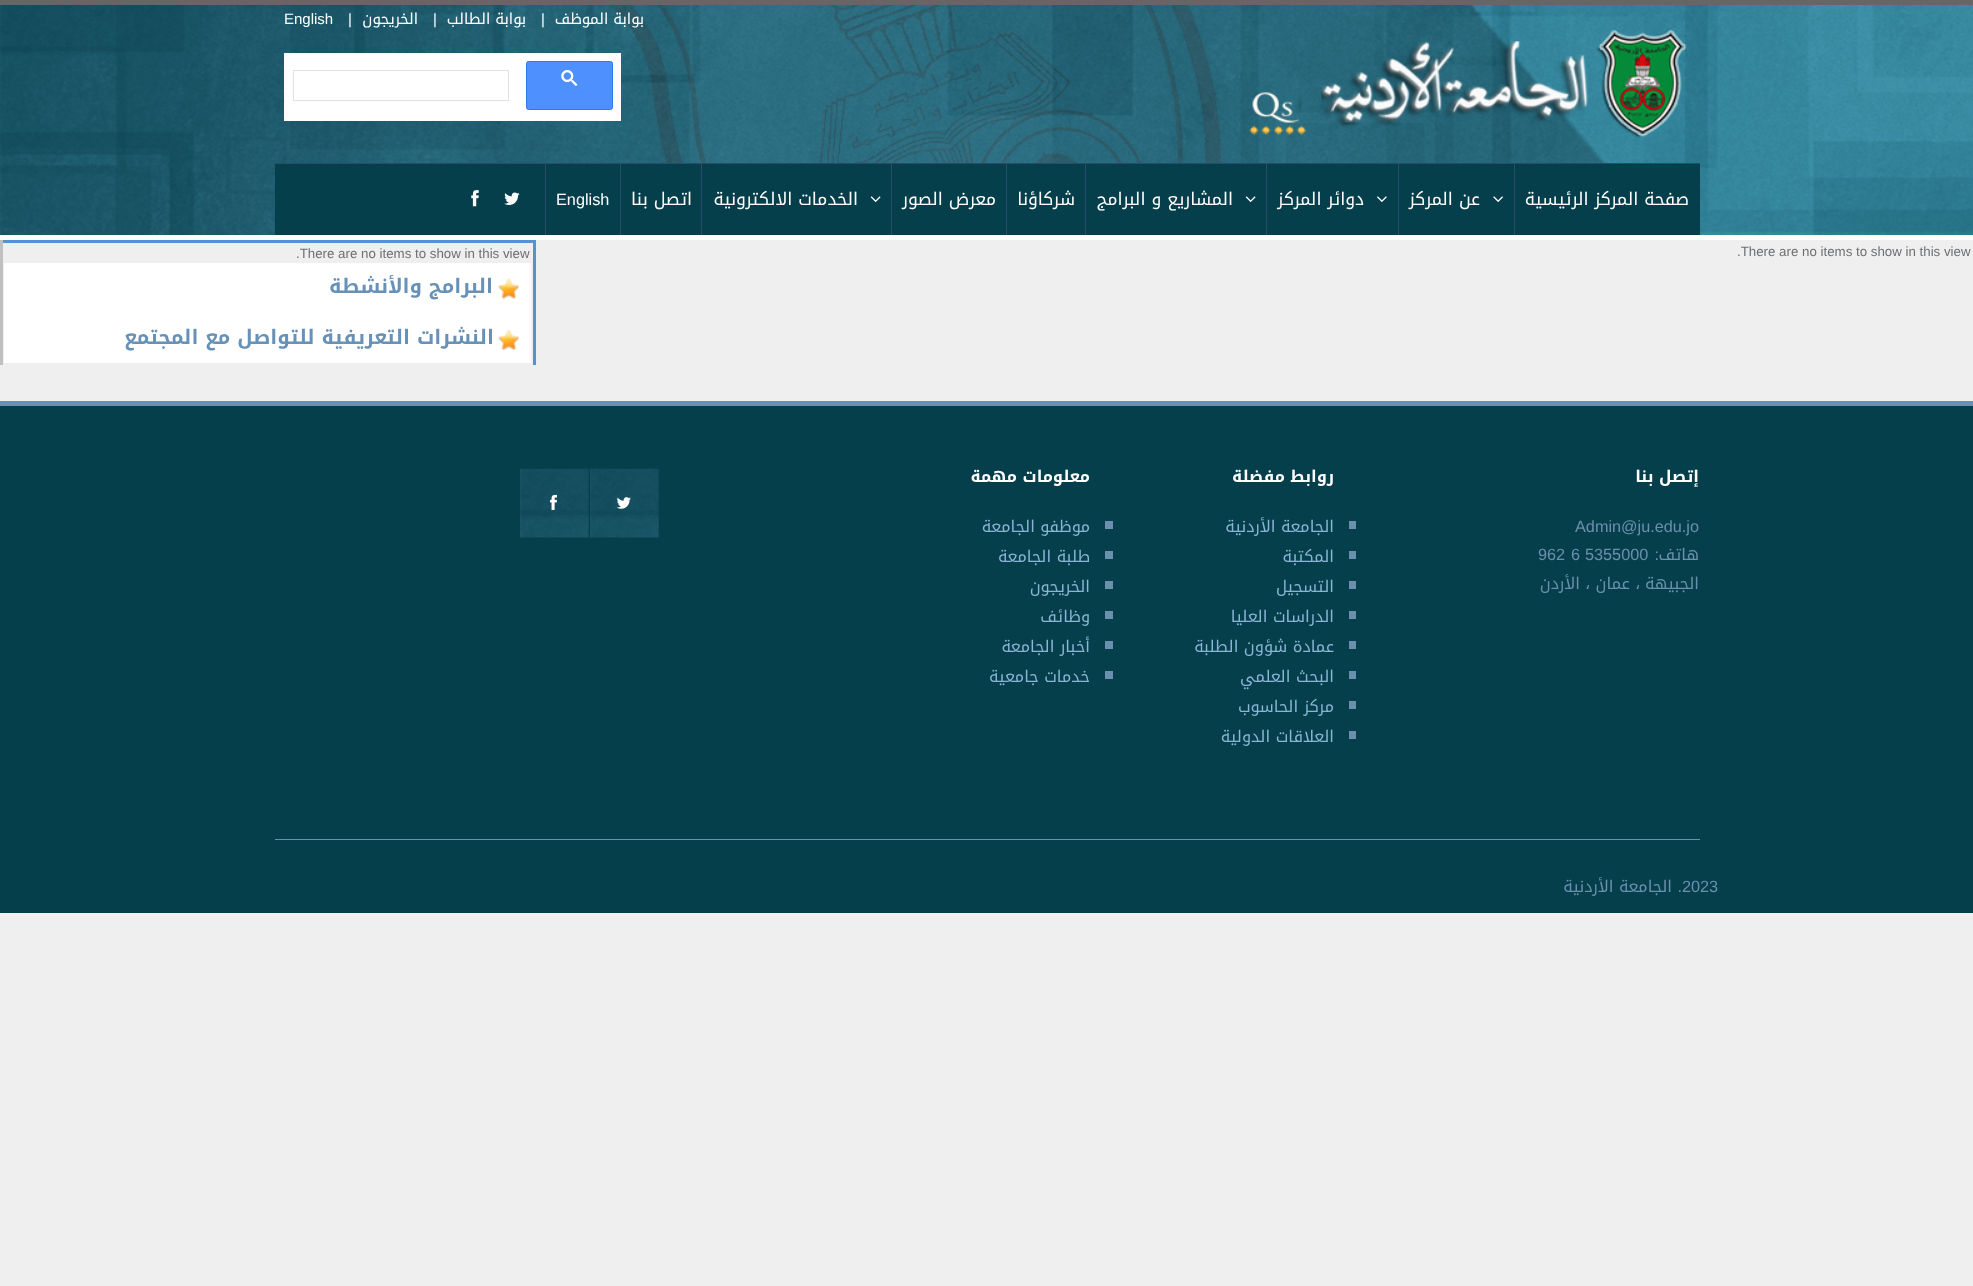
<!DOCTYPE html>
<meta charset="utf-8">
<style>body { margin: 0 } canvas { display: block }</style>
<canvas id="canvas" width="1973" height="1286"></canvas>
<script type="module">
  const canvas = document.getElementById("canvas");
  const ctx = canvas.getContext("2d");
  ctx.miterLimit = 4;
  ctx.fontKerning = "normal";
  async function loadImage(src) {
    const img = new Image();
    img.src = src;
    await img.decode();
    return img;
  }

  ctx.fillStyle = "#efefef";
  ctx.fillRect(0, 0, 1973, 1286);
  ctx.fillStyle = "#666666";
  ctx.fillRect(0, 0, 1973, 5);
  ctx.drawImage(await loadImage("img1.png"), 0, 5, 1973, 230);
  ctx.fillStyle = "#ffffff";
  ctx.fillRect(0, 235, 1973, 5);
  ctx.direction = "rtl";
  ctx.font = "15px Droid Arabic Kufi";
  ctx.fillText("بوابة الموظف", 644, 24);
  ctx.direction = "ltr";
  ctx.font = "15px Liberation Sans";
  ctx.fillText("|", 541, 24);
  ctx.direction = "rtl";
  ctx.font = "15px Droid Arabic Kufi";
  ctx.fillText("بوابة الطالب", 526, 24);
  ctx.direction = "ltr";
  ctx.font = "15px Liberation Sans";
  ctx.fillText("|", 433, 24);
  ctx.direction = "rtl";
  ctx.font = "15px Droid Arabic Kufi";
  ctx.fillText("الخريجون", 418, 24);
  ctx.direction = "ltr";
  ctx.font = "15px Liberation Sans";
  ctx.fillText("|", 348, 24);
  ctx.fillText("English", 284, 24);
  ctx.fillRect(284, 53, 337, 68);
  ctx.fillStyle = "#4d90fe";
  ctx.beginPath();
  ctx.roundRect(526.5, 61.5, 86, 48, 2);
  ctx.fill();
  ctx.strokeStyle = "#3079ed";
  ctx.stroke();
  ctx.drawImage(await loadImage("img2.png"), 561, 70, 17, 16);
  ctx.strokeStyle = "#dfe1e5";
  ctx.strokeRect(293.5, 70.5, 215, 30);
  ctx.drawImage(await loadImage("img3.png"), 1248, 30, 439, 108);
  ctx.fillStyle = "#063f4c";
  ctx.fillRect(275, 164, 1425, 71);
  ctx.fillStyle = "#294c6b";
  ctx.fillRect(275, 163, 1425, 1);
  ctx.fillRect(1514, 164, 1, 71);
  ctx.direction = "rtl";
  ctx.font = "17.5px Droid Arabic Kufi";
  ctx.fillStyle = "#ffffff";
  ctx.fillText("صفحة المركز الرئيسية", 1689, 205);
  ctx.fillStyle = "#294c6b";
  ctx.fillRect(1398, 164, 1, 71);
  ctx.drawImage(await loadImage("img4.png"), 1493, 196, 10, 6);
  ctx.fillStyle = "#ffffff";
  ctx.fillText("عن المركز", 1480, 205);
  ctx.fillStyle = "#294c6b";
  ctx.fillRect(1266, 164, 1, 71);
  ctx.drawImage(await loadImage("img5.png"), 1377, 196, 10, 6);
  ctx.fillStyle = "#ffffff";
  ctx.fillText("دوائر المركز", 1364, 205);
  ctx.fillStyle = "#294c6b";
  ctx.fillRect(1085, 164, 1, 71);
  ctx.drawImage(await loadImage("img6.png"), 1245, 196, 11, 6);
  ctx.fillStyle = "#ffffff";
  ctx.fillText("المشاريع و البرامج", 1233, 205);
  ctx.fillStyle = "#294c6b";
  ctx.fillRect(1006, 164, 1, 71);
  ctx.fillStyle = "#ffffff";
  ctx.fillText("شركاؤنا", 1075, 205);
  ctx.fillStyle = "#294c6b";
  ctx.fillRect(891, 164, 1, 71);
  ctx.fillStyle = "#ffffff";
  ctx.fillText("معرض الصور", 996, 205);
  ctx.fillStyle = "#294c6b";
  ctx.fillRect(701, 164, 1, 71);
  ctx.drawImage(await loadImage("img6.png"), 870, 196, 11, 6);
  ctx.fillStyle = "#ffffff";
  ctx.fillText("الخدمات الالكترونية", 858, 205);
  ctx.fillStyle = "#294c6b";
  ctx.fillRect(620, 164, 1, 71);
  ctx.fillStyle = "#ffffff";
  ctx.fillText("اتصل بنا", 692, 205);
  ctx.fillStyle = "#294c6b";
  ctx.fillRect(545, 164, 1, 71);
  ctx.direction = "ltr";
  ctx.font = "16.25px Liberation Sans";
  ctx.fillStyle = "#ffffff";
  ctx.fillText("English", 556, 205);
  ctx.drawImage(await loadImage("img7.png"), 504, 192, 16, 13);
  ctx.drawImage(await loadImage("img8.png"), 471, 190, 8, 17);
  ctx.font = "13.3px Liberation Sans";
  ctx.fillStyle = "#6d6f72";
  ctx.fillText(".There are no items to show in this view", 1737, 256);
  ctx.fillStyle = "#5593d0";
  ctx.fillRect(0, 240, 535, 3);
  ctx.fillRect(533, 240, 3, 125);
  ctx.fillStyle = "#c0c0c0";
  ctx.fillRect(0, 240, 3, 125);
  ctx.fillStyle = "#6d6f72";
  ctx.fillText(".There are no items to show in this view", 296, 258);
  ctx.fillStyle = "#ffffff";
  ctx.fillRect(4, 263, 527, 100);
  ctx.drawImage(await loadImage("img9.png"), 498, 278, 21, 21);
  ctx.direction = "rtl";
  ctx.font = "bold 20px Droid Arabic Kufi";
  ctx.fillStyle = "#6791b7";
  ctx.fillText("البرامج", 493, 293);
  ctx.fillText("والأنشطة", 422, 293);
  ctx.drawImage(await loadImage("img10.png"), 498, 330, 21, 20);
  ctx.fillText("النشرات", 494, 344);
  ctx.fillText("التعريفية للتواصل مع المجتمع", 410, 344);
  ctx.fillStyle = "#063f4c";
  ctx.fillRect(0, 406, 1973, 507);
  ctx.fillStyle = "#6b90ad";
  ctx.fillRect(0, 401, 1973, 5);
  ctx.font = "bold 16.25px Droid Arabic Kufi";
  ctx.fillStyle = "#ffffff";
  ctx.fillText("إتصل بنا", 1699, 482);
  ctx.direction = "ltr";
  ctx.font = "16.25px Liberation Sans";
  ctx.fillStyle = "#6b90ad";
  ctx.fillText("Admin@ju.edu.jo", 1575, 532);
  ctx.direction = "rtl";
  ctx.font = "16.25px Droid Arabic Kufi";
  ctx.fillText("هاتف", 1699, 560);
  ctx.font = "16.25px Liberation Sans";
  ctx.fillText(":", 1659, 560);
  ctx.direction = "ltr";
  ctx.fillText("5355000", 1585, 560);
  ctx.fillText("6", 1571, 560);
  ctx.fillText("962", 1538, 560);
  ctx.direction = "rtl";
  ctx.font = "16.25px Droid Arabic Kufi";
  ctx.fillText("الجبيهة", 1699, 589);
  ctx.fillText("، عمان ، الأردن", 1640, 589);
  ctx.font = "bold 16.25px Droid Arabic Kufi";
  ctx.fillStyle = "#ffffff";
  ctx.fillText("روابط مفضلة", 1334, 482);
  ctx.fillStyle = "#6b90ad";
  ctx.fillRect(1349, 521, 7, 8);
  ctx.font = "16.25px Droid Arabic Kufi";
  ctx.fillStyle = "#8ab5d6";
  ctx.fillText("الجامعة الأردنية", 1334, 532);
  ctx.fillStyle = "#6b90ad";
  ctx.fillRect(1349, 551, 7, 8);
  ctx.fillStyle = "#8ab5d6";
  ctx.fillText("المكتبة", 1334, 562);
  ctx.fillStyle = "#6b90ad";
  ctx.fillRect(1349, 581, 7, 8);
  ctx.fillStyle = "#8ab5d6";
  ctx.fillText("التسجيل", 1334, 592);
  ctx.fillStyle = "#6b90ad";
  ctx.fillRect(1349, 611, 7, 8);
  ctx.fillStyle = "#8ab5d6";
  ctx.fillText("الدراسات العليا", 1334, 622);
  ctx.fillStyle = "#6b90ad";
  ctx.fillRect(1349, 641, 7, 8);
  ctx.fillStyle = "#8ab5d6";
  ctx.fillText("عمادة شؤون الطلبة", 1334, 652);
  ctx.fillStyle = "#6b90ad";
  ctx.fillRect(1349, 671, 7, 8);
  ctx.fillStyle = "#8ab5d6";
  ctx.fillText("البحث العلمي", 1334, 682);
  ctx.fillStyle = "#6b90ad";
  ctx.fillRect(1349, 701, 7, 8);
  ctx.fillStyle = "#8ab5d6";
  ctx.fillText("مركز الحاسوب", 1334, 712);
  ctx.fillStyle = "#6b90ad";
  ctx.fillRect(1349, 731, 7, 8);
  ctx.fillStyle = "#8ab5d6";
  ctx.fillText("العلاقات الدولية", 1334, 742);
  ctx.font = "bold 16.25px Droid Arabic Kufi";
  ctx.fillStyle = "#ffffff";
  ctx.fillText("معلومات مهمة", 1090, 482);
  ctx.fillStyle = "#6b90ad";
  ctx.fillRect(1105, 521, 8, 8);
  ctx.font = "16.25px Droid Arabic Kufi";
  ctx.fillStyle = "#8ab5d6";
  ctx.fillText("موظفو الجامعة", 1090, 532);
  ctx.fillStyle = "#6b90ad";
  ctx.fillRect(1105, 551, 8, 8);
  ctx.fillStyle = "#8ab5d6";
  ctx.fillText("طلبة الجامعة", 1090, 562);
  ctx.fillStyle = "#6b90ad";
  ctx.fillRect(1105, 581, 8, 8);
  ctx.fillStyle = "#8ab5d6";
  ctx.fillText("الخريجون", 1090, 592);
  ctx.fillStyle = "#6b90ad";
  ctx.fillRect(1105, 611, 8, 8);
  ctx.fillStyle = "#8ab5d6";
  ctx.fillText("وظائف", 1090, 622);
  ctx.fillStyle = "#6b90ad";
  ctx.fillRect(1105, 641, 8, 8);
  ctx.fillStyle = "#8ab5d6";
  ctx.fillText("أخبار الجامعة", 1090, 652);
  ctx.fillStyle = "#6b90ad";
  ctx.fillRect(1105, 671, 8, 8);
  ctx.fillStyle = "#8ab5d6";
  ctx.fillText("خدمات جامعية", 1090, 682);
  ctx.drawImage(await loadImage("img11.png"), 590, 468, 69, 70);
  ctx.drawImage(await loadImage("img12.png"), 616, 497, 15, 12);
  ctx.drawImage(await loadImage("img13.png"), 520, 468, 69, 70);
  ctx.drawImage(await loadImage("img14.png"), 550, 494, 7, 16);
  ctx.fillStyle = "#6b90ad";
  ctx.fillRect(275, 839, 1425, 1);
  ctx.direction = "ltr";
  ctx.font = "16.25px Liberation Sans";
  ctx.fillText("2023", 1682, 892);
  ctx.direction = "rtl";
  ctx.fillText(".", 1682, 892);
  ctx.font = "16.25px Droid Arabic Kufi";
  ctx.fillText("الجامعة الأردنية", 1672, 892);
</script>
